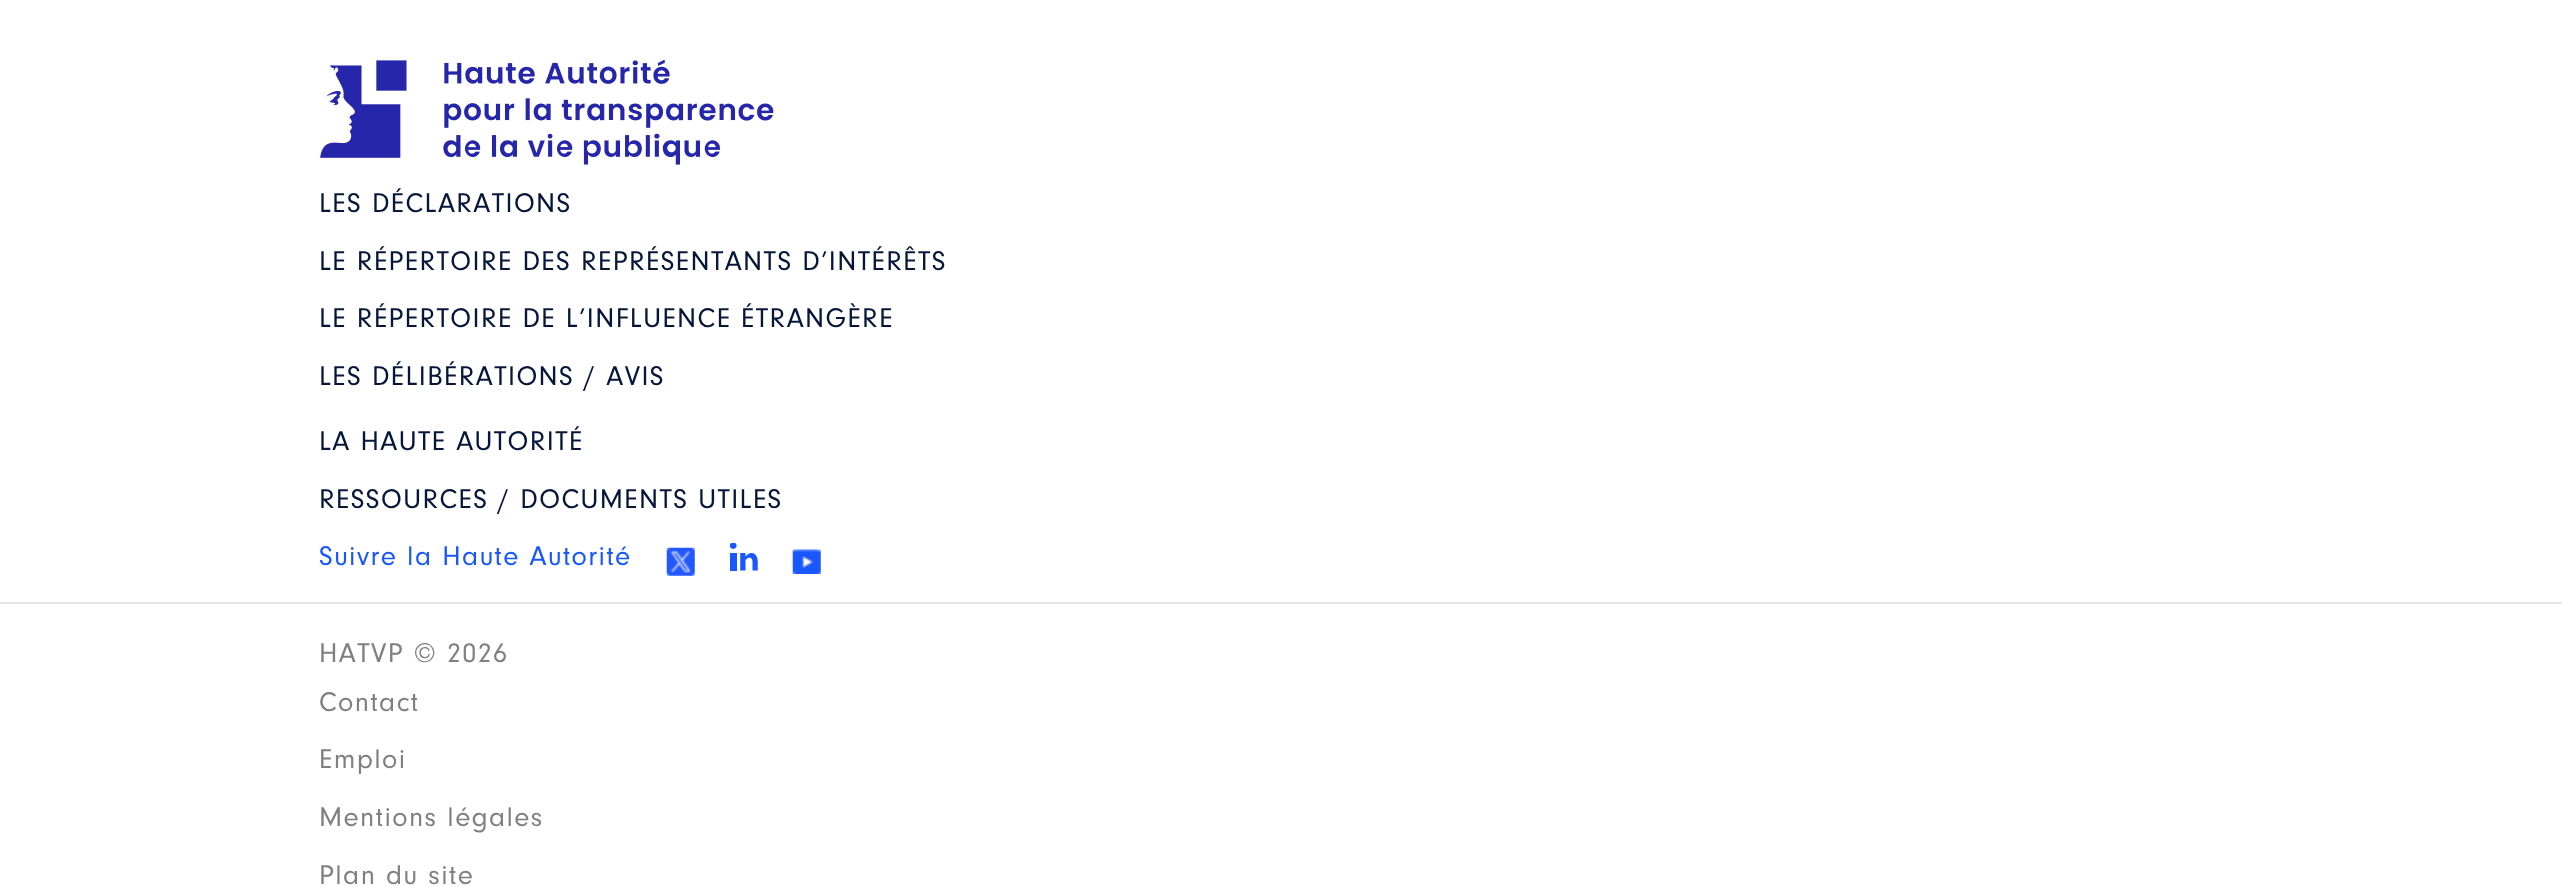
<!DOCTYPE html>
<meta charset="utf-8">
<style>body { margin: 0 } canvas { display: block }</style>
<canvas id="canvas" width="2562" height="886"></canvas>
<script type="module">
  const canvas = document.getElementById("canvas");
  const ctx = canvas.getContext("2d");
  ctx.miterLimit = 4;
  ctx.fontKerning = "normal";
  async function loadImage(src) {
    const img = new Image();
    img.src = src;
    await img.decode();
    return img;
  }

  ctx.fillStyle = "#ffffff";
  ctx.fillRect(0, 0, 2562, 886);
  ctx.fillStyle = "#e6e6e6";
  ctx.fillRect(0, 602, 2562, 2);
  ctx.drawImage(await loadImage("img1.png"), 320, 60, 454, 105);
  ctx.letterSpacing = "1.4px";
  ctx.font = "28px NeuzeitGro";
  ctx.fillStyle = "#051639";
  ctx.fillText("LES DÉCLARATIONS", 319, 212);
  ctx.fillText("LE RÉPERTOIRE DES REPRÉSENTANTS D’INTÉRÊTS", 319, 270);
  ctx.fillText("LE RÉPERTOIRE DE L’INFLUENCE ÉTRANGÈRE", 319, 327);
  ctx.fillText("LES DÉLIBÉRATIONS / AVIS", 319, 385);
  ctx.fillText("LA HAUTE AUTORITÉ", 319, 450);
  ctx.fillText("RESSOURCES / DOCUMENTS UTILES", 319, 508);
  ctx.fillStyle = "#1857ff";
  ctx.fillText("Suivre la Haute Autorité", 319, 565);
  ctx.drawImage(await loadImage("img2.png"), 666, 547, 29, 29);
  ctx.drawImage(await loadImage("img3.png"), 730, 543, 28, 28);
  ctx.drawImage(await loadImage("img4.png"), 792, 549, 29, 25);
  ctx.fillStyle = "#808080";
  ctx.fillText("HATVP © 2026", 319, 662);
  ctx.fillText("Contact", 319, 711);
  ctx.fillText("Emploi", 319, 768);
  ctx.fillText("Mentions légales", 319, 826);
  ctx.fillText("Plan du site", 319, 884);
</script>
